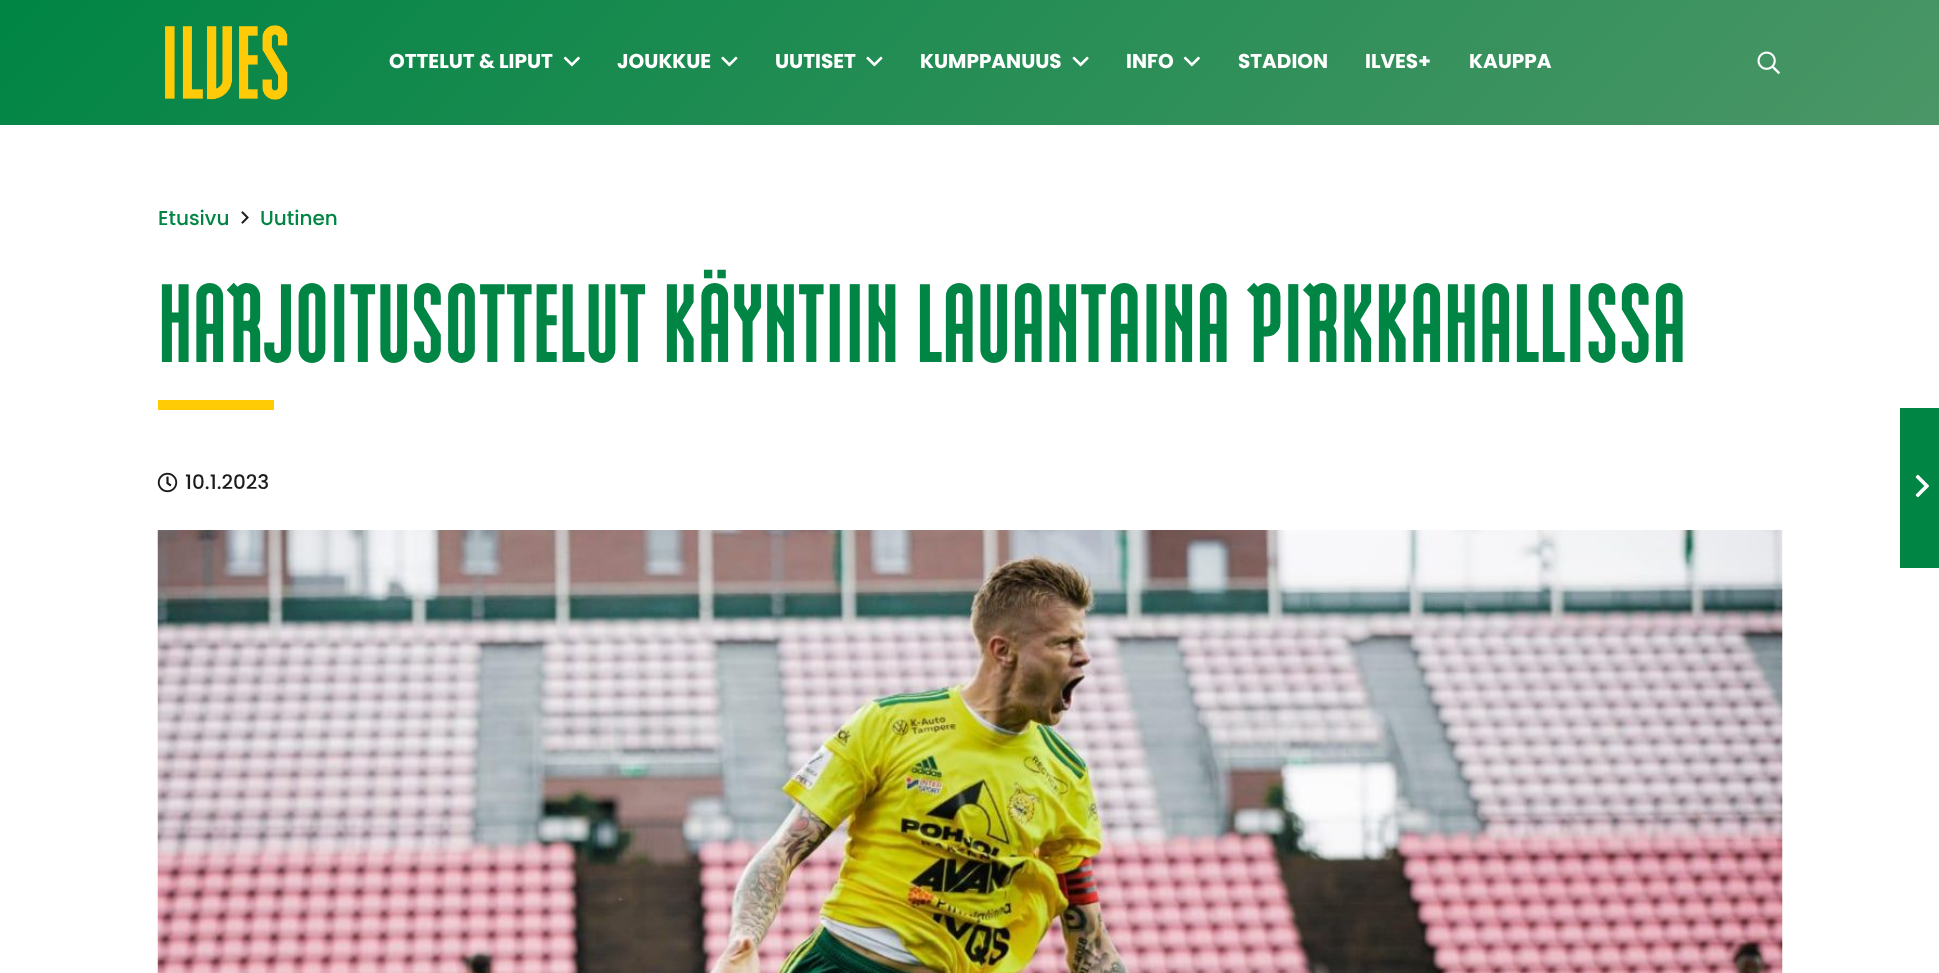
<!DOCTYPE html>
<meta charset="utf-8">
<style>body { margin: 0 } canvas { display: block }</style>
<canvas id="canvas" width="1939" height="973"></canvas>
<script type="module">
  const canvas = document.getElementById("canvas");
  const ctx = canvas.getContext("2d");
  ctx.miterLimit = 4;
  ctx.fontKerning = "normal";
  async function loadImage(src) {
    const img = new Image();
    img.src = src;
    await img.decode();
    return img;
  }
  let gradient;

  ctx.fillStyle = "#ffffff";
  ctx.fillRect(0, 0, 1939, 973);
  gradient = ctx.createLinearGradient(454, -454, 1486, 579);
  gradient.addColorStop(0, "#008544");
  gradient.addColorStop(1, "#4b9666");
  ctx.fillStyle = gradient;
  ctx.fillRect(0, 0, 1939, 125);
  ctx.drawImage(await loadImage("img1.png"), 165, 25, 123, 75);
  ctx.font = "bold 20px Poppins";
  ctx.fillStyle = "#ffffff";
  ctx.fillText("OTTELUT & LIPUT", 389, 68);
  ctx.drawImage(await loadImage("img2.png"), 563, 56, 17, 11);
  ctx.fillText("JOUKKUE", 617, 68);
  ctx.drawImage(await loadImage("img3.png"), 721, 56, 17, 11);
  ctx.fillText("UUTISET", 775, 68);
  ctx.drawImage(await loadImage("img4.png"), 866, 56, 17, 11);
  ctx.fillText("KUMPPANUUS", 920, 68);
  ctx.drawImage(await loadImage("img5.png"), 1072, 56, 17, 11);
  ctx.fillText("INFO", 1126, 68);
  ctx.drawImage(await loadImage("img6.png"), 1183, 56, 17, 11);
  ctx.fillText("STADION", 1238, 68);
  ctx.fillText("ILVES+", 1365, 68);
  ctx.fillText("KAUPPA", 1469, 68);
  ctx.drawImage(await loadImage("img7.png"), 1757, 51, 23, 23);
  ctx.font = "500 20px Poppins";
  ctx.fillStyle = "#008544";
  ctx.fillText("Etusivu", 158, 225);
  ctx.drawImage(await loadImage("img8.png"), 241, 211, 8, 13);
  ctx.fillText("Uutinen", 260, 225);
  ctx.font = "900 111.25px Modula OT";
  ctx.fillText("HARJOITUSOTTELUT KÄYNTIIN LAUANTAINA PIRKKAHALLISSA", 158, 362);
  ctx.fillStyle = "#ffcb05";
  ctx.fillRect(158, 400, 116, 10);
  ctx.drawImage(await loadImage("img9.png"), 157, 472, 21, 21);
  ctx.font = "500 20px Poppins";
  ctx.fillStyle = "#1b1b1b";
  ctx.fillText("10.1.2023", 185, 489);
  ctx.fillStyle = "#008544";
  ctx.fillRect(1900, 408, 39, 160);
  ctx.drawImage(await loadImage("img10.png"), 1915, 474, 14, 24);
  ctx.drawImage(await loadImage("img11.png"), 157, 530, 1626, 443);
</script>
